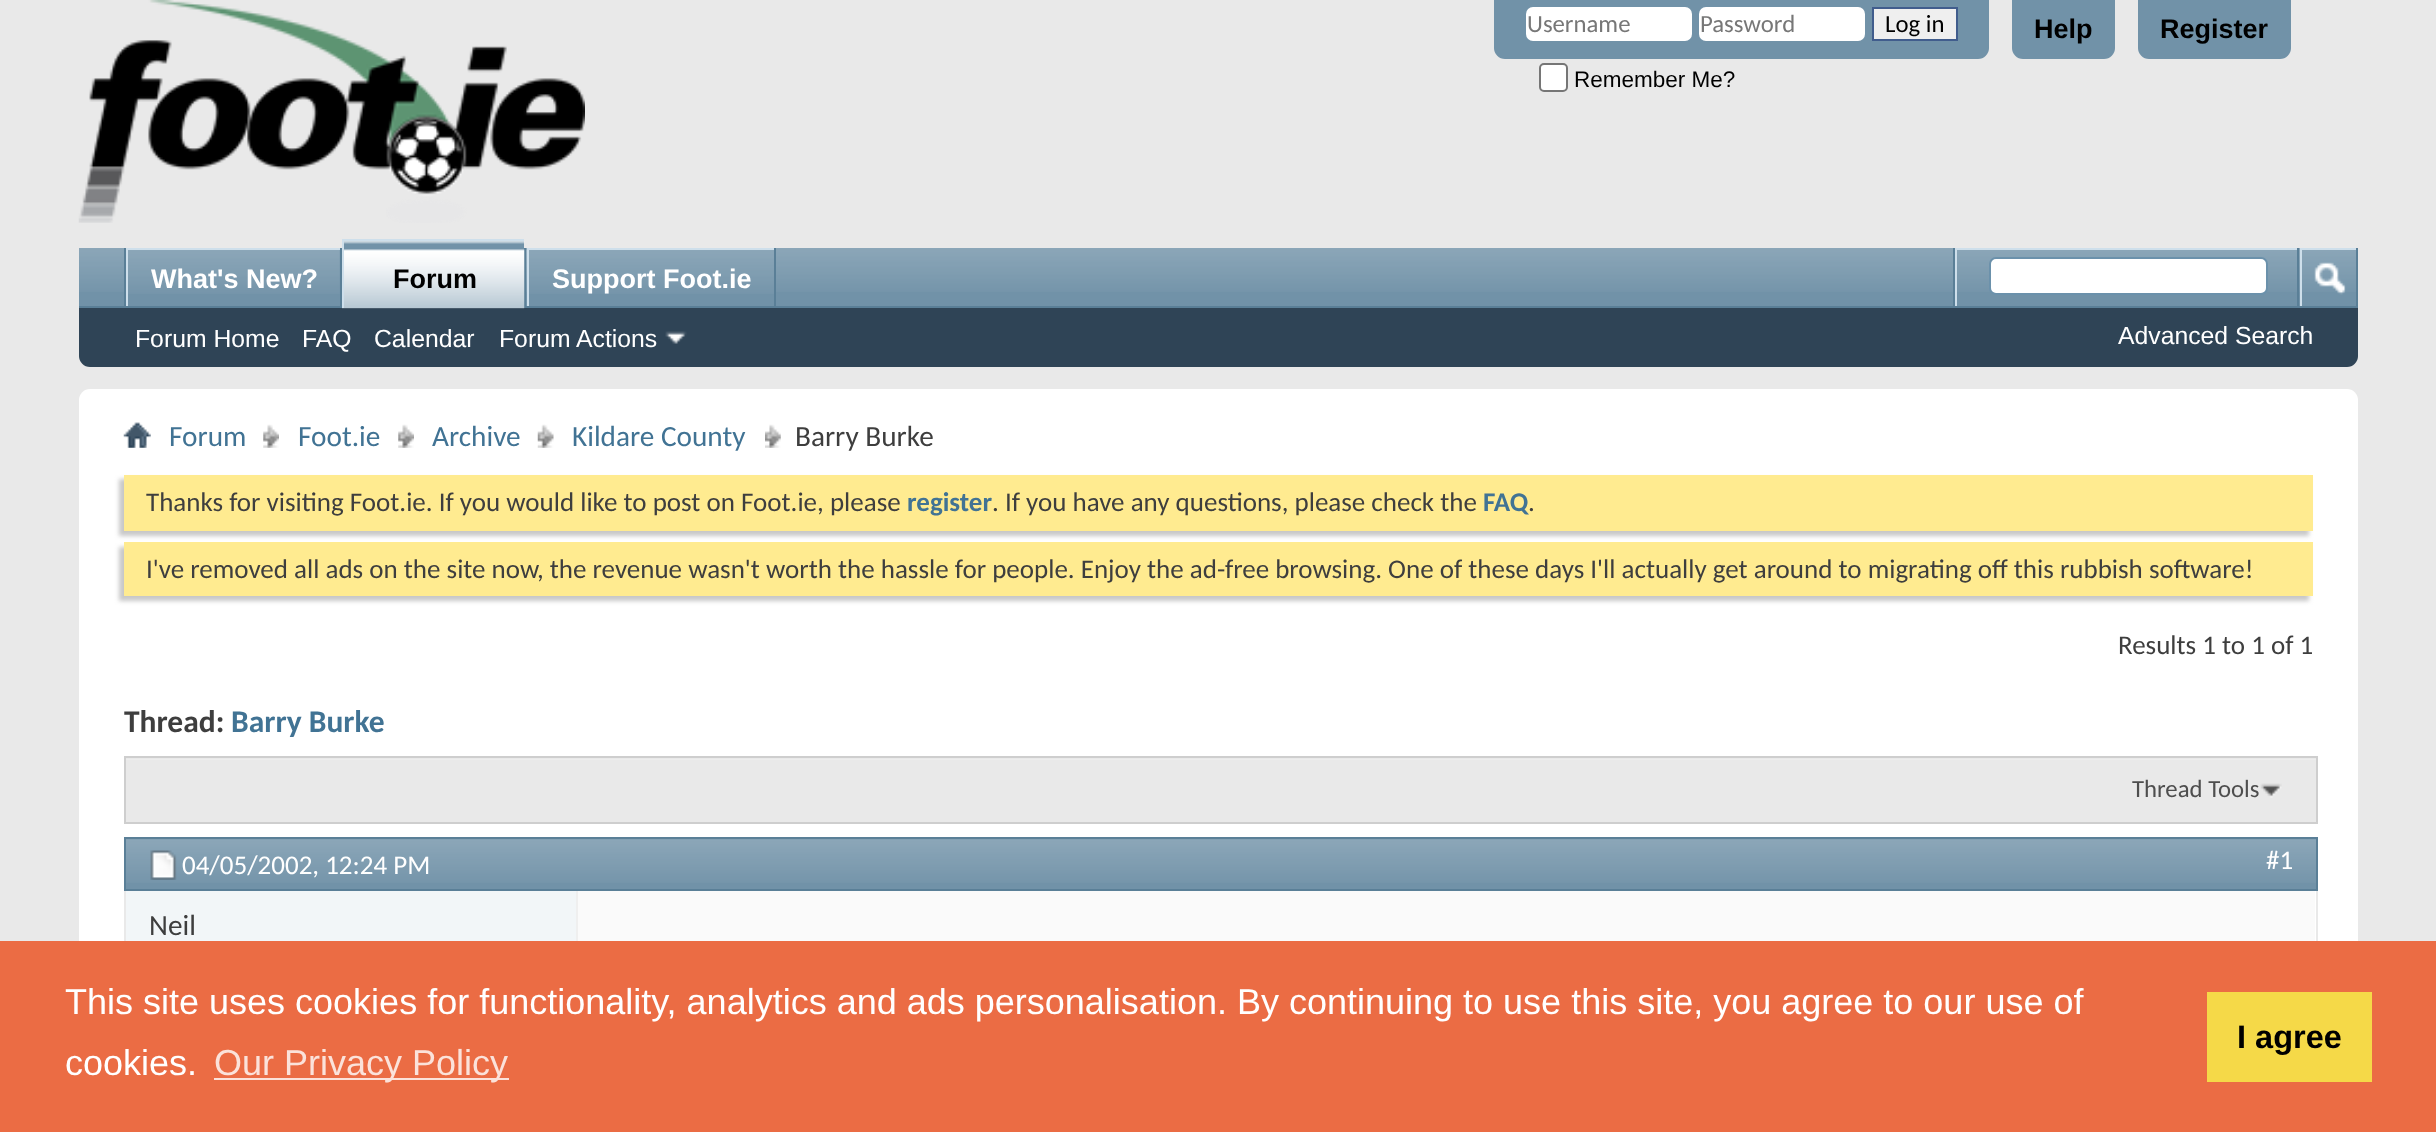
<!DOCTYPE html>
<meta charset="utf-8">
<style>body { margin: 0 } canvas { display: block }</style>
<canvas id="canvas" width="2436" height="1132"></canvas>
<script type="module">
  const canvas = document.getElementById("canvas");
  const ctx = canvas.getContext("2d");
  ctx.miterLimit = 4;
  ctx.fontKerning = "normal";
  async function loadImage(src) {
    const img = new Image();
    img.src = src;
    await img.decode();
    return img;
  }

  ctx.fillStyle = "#e9e9e9";
  ctx.fillRect(0, 0, 2436, 1132);
  ctx.drawImage(await loadImage("img1.png"), 78, 0, 507, 223);
  ctx.fillStyle = "#7192a8";
  ctx.beginPath();
  ctx.roundRect(1494, 0, 495, 59, [0, 0, 11, 11]);
  ctx.fill();
  ctx.fillStyle = "#ffffff";
  ctx.beginPath();
  ctx.roundRect(1526, 7, 166, 34, 7);
  ctx.fill();
  ctx.font = "24.75px Carlito";
  ctx.fillStyle = "#777777";
  ctx.fillText("Username", 1527, 32);
  ctx.fillStyle = "#ffffff";
  ctx.beginPath();
  ctx.roundRect(1699, 7, 166, 34, 7);
  ctx.fill();
  ctx.fillStyle = "#777777";
  ctx.fillText("Password", 1700, 32);
  ctx.fillStyle = "#efefef";
  ctx.beginPath();
  ctx.rect(1873, 8, 84, 32);
  ctx.fill();
  ctx.strokeStyle = "#415d8d";
  ctx.lineWidth = 2;
  ctx.stroke();
  ctx.fillStyle = "#000000";
  ctx.fillText("Log in", 1885, 32);
  ctx.fillStyle = "#ffffff";
  ctx.beginPath();
  ctx.roundRect(1540, 64, 27, 27, 4);
  ctx.fill();
  ctx.strokeStyle = "#767676";
  ctx.stroke();
  ctx.font = "22.5px Liberation Sans";
  ctx.fillStyle = "#000000";
  ctx.fillText("Remember Me?", 1574, 87);
  ctx.fillStyle = "#7192a8";
  ctx.beginPath();
  ctx.roundRect(2012, 0, 103, 59, [0, 0, 11, 11]);
  ctx.fill();
  ctx.font = "bold 27px Liberation Sans";
  ctx.fillStyle = "#000000";
  ctx.fillText("Help", 2034, 38);
  ctx.fillStyle = "#7192a8";
  ctx.beginPath();
  ctx.roundRect(2138, 0, 153, 59, [0, 0, 11, 11]);
  ctx.fill();
  ctx.fillStyle = "#000000";
  ctx.fillText("Register", 2160, 38);
  ctx.fillStyle = "#2f4456";
  ctx.beginPath();
  ctx.roundRect(79, 248, 2279, 119, [0, 0, 11, 11]);
  ctx.fill();
  ctx.fillStyle = "#7192a8";
  ctx.fillRect(79, 248, 2277, 58);
  ctx.drawImage(await loadImage("img2.png"), 79, 248, 2277, 44);
  ctx.fillStyle = "#5a7f97";
  ctx.fillRect(340, 248, 2, 60);
  ctx.fillRect(124, 248, 2, 60);
  ctx.fillStyle = "#7192a8";
  ctx.fillRect(128, 250, 212, 42);
  ctx.drawImage(await loadImage("img3.png"), 128, 250, 212, 44);
  ctx.fillStyle = "#cedfeb";
  ctx.fillRect(126, 248, 214, 2);
  ctx.fillRect(126, 248, 2, 60);
  ctx.fillStyle = "#ffffff";
  ctx.fillText("What's New?", 151, 288);
  ctx.fillStyle = "#5a7f97";
  ctx.fillRect(524, 248, 2, 58);
  ctx.fillRect(774, 248, 2, 60);
  ctx.fillStyle = "#7192a8";
  ctx.fillRect(529, 250, 245, 42);
  ctx.drawImage(await loadImage("img5.png"), 526, 249, 248, 45);
  ctx.fillStyle = "#cedfeb";
  ctx.fillRect(527, 248, 247, 2);
  ctx.fillRect(527, 248, 2, 60);
  ctx.fillStyle = "#5a7f97";
  ctx.fillRect(79, 306, 2279, 2);
  ctx.fillStyle = "#7192a8";
  ctx.fillRect(344, 241, 180, 67);
  ctx.drawImage(await loadImage("img4.png"), 342, 240, 183, 69);
  ctx.fillStyle = "#cedfeb";
  ctx.fillRect(342, 239, 182, 2);
  ctx.fillRect(342, 239, 2, 69);
  ctx.fillStyle = "#000000";
  ctx.fillText("Forum", 393, 288);
  ctx.fillStyle = "#ffffff";
  ctx.fillText("Support Foot.ie", 552, 288);
  ctx.font = "24.75px Liberation Sans";
  ctx.fillText("Forum Home", 135, 347);
  ctx.fillText("FAQ", 302, 347);
  ctx.fillText("Calendar", 374, 347);
  ctx.fillText("Forum Actions", 499, 347);
  ctx.drawImage(await loadImage("img6.png"), 665, 331, 22, 13);
  ctx.fillStyle = "#5a7f97";
  ctx.fillRect(1953, 248, 2, 58);
  ctx.fillStyle = "#cedfeb";
  ctx.fillRect(1955, 248, 342, 2);
  ctx.fillRect(1955, 248, 2, 58);
  ctx.fillStyle = "#ffffff";
  ctx.beginPath();
  ctx.roundRect(1990, 258, 277, 36, 6);
  ctx.fill();
  ctx.strokeStyle = "#6b91ab";
  ctx.stroke();
  ctx.fillStyle = "#5a7f97";
  ctx.fillRect(2356, 248, 2, 58);
  ctx.fillRect(2297, 248, 2, 58);
  ctx.fillStyle = "#cedfeb";
  ctx.fillRect(2300, 248, 56, 2);
  ctx.fillRect(2300, 248, 2, 58);
  ctx.drawImage(await loadImage("img7.png"), 2314, 262, 32, 33);
  ctx.fillStyle = "#ffffff";
  ctx.fillText("Advanced Search", 2118, 344);
  ctx.beginPath();
  ctx.roundRect(79, 389, 2279, 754, 11);
  ctx.fill();
  ctx.drawImage(await loadImage("img8.png"), 123, 422, 28, 26);
  ctx.drawImage(await loadImage("img9.png"), 263, 424, 16, 24);
  ctx.font = "29.25px Carlito";
  ctx.fillStyle = "#417394";
  ctx.fillText("Forum", 169, 446);
  ctx.drawImage(await loadImage("img9.png"), 398, 424, 16, 24);
  ctx.fillText("Foot.ie", 298, 446);
  ctx.drawImage(await loadImage("img10.png"), 537, 424, 17, 24);
  ctx.fillText("Archive", 432, 446);
  ctx.drawImage(await loadImage("img11.png"), 765, 424, 16, 24);
  ctx.fillText("Kildare County", 572, 446);
  ctx.fillStyle = "#3e3e3e";
  ctx.fillText("Barry Burke", 795, 446);
  ctx.fillStyle = "#c8c8c8";
  ctx.filter = "blur(2px)";
  ctx.beginPath();
  ctx.rect(119, 479, 2190, 57);
  ctx.fill();
  ctx.filter = "none";
  ctx.fillStyle = "#ffeb90";
  ctx.fillRect(124, 475, 2189, 56);
  ctx.font = "27px Carlito";
  ctx.fillStyle = "#3e3e3e";
  ctx.fillText("Thanks for visiting Foot.ie. If you would like to post on Foot.ie, please", 146, 511);
  ctx.font = "bold 27px Carlito";
  ctx.fillStyle = "#417394";
  ctx.fillText("register", 907, 511);
  ctx.font = "27px Carlito";
  ctx.fillStyle = "#3e3e3e";
  ctx.fillText(". If you have any questions, please check the", 992, 511);
  ctx.font = "bold 27px Carlito";
  ctx.fillStyle = "#417394";
  ctx.fillText("FAQ", 1483, 511);
  ctx.font = "27px Carlito";
  ctx.fillStyle = "#3e3e3e";
  ctx.fillText(".", 1528, 511);
  ctx.fillStyle = "#c8c8c8";
  ctx.filter = "blur(2px)";
  ctx.beginPath();
  ctx.rect(119, 547, 2190, 54);
  ctx.fill();
  ctx.filter = "none";
  ctx.fillStyle = "#ffeb90";
  ctx.fillRect(124, 542, 2189, 54);
  ctx.fillStyle = "#3e3e3e";
  ctx.fillText("I've removed all ads on the site now, the revenue wasn't worth the hassle for people. Enjoy the ad-free browsing. One of these days I'll actually get around to migrating off this rubbish software!", 146, 578);
  ctx.fillText("Results 1 to 1 of 1", 2118, 654);
  ctx.font = "bold 31.5px Carlito";
  ctx.fillText("Thread:", 124, 732);
  ctx.fillStyle = "#417394";
  ctx.fillText("Barry Burke", 231, 732);
  ctx.fillStyle = "#e9e9e9";
  ctx.fillRect(126, 758, 2190, 64);
  ctx.fillStyle = "#ededed";
  ctx.fillRect(124, 759, 2193, 1);
  ctx.strokeStyle = "#cecece";
  ctx.strokeRect(125, 757, 2192, 66);
  ctx.drawImage(await loadImage("img12.png"), 2260, 783, 22, 15);
  ctx.font = "24.75px Carlito";
  ctx.fillStyle = "#4e4e4e";
  ctx.fillText("Thread Tools", 2132, 797);
  ctx.strokeStyle = "#e9e9e9";
  ctx.strokeRect(125, 838, 2192, 288);
  ctx.fillStyle = "#7192a8";
  ctx.fillRect(126, 839, 2190, 50);
  ctx.drawImage(await loadImage("img13.png"), 126, 839, 2190, 44);
  ctx.strokeStyle = "#5a7f97";
  ctx.strokeRect(125, 838, 2192, 52);
  ctx.drawImage(await loadImage("img14.png"), 150, 850, 27, 30);
  ctx.font = "27px Carlito";
  ctx.fillStyle = "#ffffff";
  ctx.fillText("04/05/2002, 12:24 PM", 182, 874);
  ctx.fillText("#1", 2266, 869);
  ctx.fillStyle = "#f2f6f8";
  ctx.fillRect(126, 891, 450, 50);
  ctx.font = "29.25px Carlito";
  ctx.fillStyle = "#3e3e3e";
  ctx.fillText("Neil", 149, 935);
  ctx.fillStyle = "#fafafa";
  ctx.fillRect(578, 891, 1737, 50);
  ctx.fillStyle = "#efefef";
  ctx.fillRect(576, 891, 2, 50);
  ctx.fillStyle = "#eb6c44";
  ctx.fillRect(0, 941, 2436, 191);
  ctx.font = "36px Liberation Sans";
  ctx.fillStyle = "#ffffff";
  ctx.fillText("This site uses cookies for functionality, analytics and ads personalisation. By continuing to use this site, you agree to our use of", 65, 1014);
  ctx.fillText("cookies.", 65, 1075);
  ctx.fillStyle = "#fbe2da";
  ctx.fillRect(214, 1078, 295, 2);
  ctx.fillText("Our Privacy Policy", 214, 1075);
  ctx.fillStyle = "#f5d948";
  ctx.fillRect(2207, 992, 165, 90);
  ctx.font = "bold 32.5px Liberation Sans";
  ctx.fillStyle = "#000000";
  ctx.fillText("I agree", 2237, 1048);
</script>
